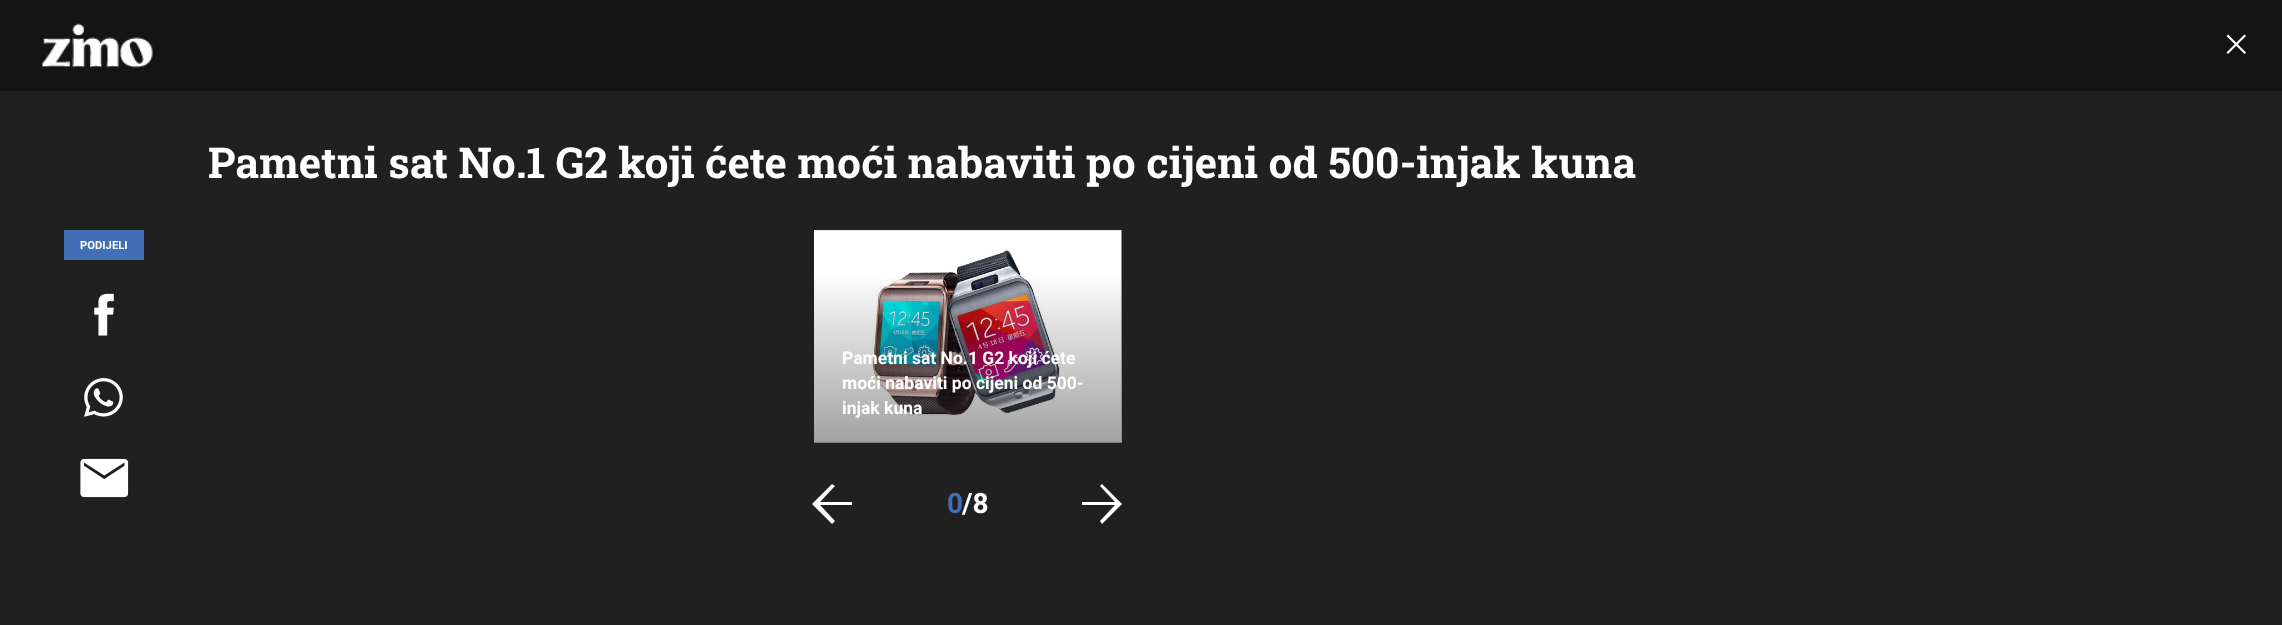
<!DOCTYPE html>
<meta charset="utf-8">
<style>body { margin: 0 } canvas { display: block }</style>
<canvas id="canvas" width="2282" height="625"></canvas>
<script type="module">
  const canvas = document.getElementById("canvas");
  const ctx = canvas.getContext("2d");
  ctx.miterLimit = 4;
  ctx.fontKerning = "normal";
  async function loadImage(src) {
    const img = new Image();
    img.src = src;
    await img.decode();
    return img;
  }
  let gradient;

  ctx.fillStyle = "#202020";
  ctx.fillRect(0, 0, 2282, 625);
  ctx.fillStyle = "#141414";
  ctx.fillRect(0, 0, 2282, 91);
  ctx.drawImage(await loadImage("img1.png"), 42, 23, 111, 45);
  ctx.drawImage(await loadImage("img2.png"), 2226, 34, 20, 20);
  ctx.font = "bold 42.5px Roboto Slab";
  ctx.fillStyle = "#ffffff";
  ctx.fillText("Pametni sat No.1 G2 koji ćete moći nabaviti po cijeni od 500-injak kuna", 208, 178);
  ctx.fillStyle = "#426fb5";
  ctx.fillRect(64, 230, 80, 30);
  ctx.font = "bold 11.25px Roboto";
  ctx.fillStyle = "#ffffff";
  ctx.fillText("PODIJELI", 80, 249);
  ctx.drawImage(await loadImage("img3.png"), 94, 293, 20, 43);
  ctx.drawImage(await loadImage("img4.png"), 84, 378, 39, 39);
  ctx.drawImage(await loadImage("img5.png"), 80, 458, 49, 40);
  ctx.drawImage(await loadImage("img6.png"), 814, 230, 308, 213);
  gradient = ctx.createLinearGradient(968, 443, 968, 270);
  gradient.addColorStop(0, "rgba(20, 20, 20, 0.4)");
  gradient.addColorStop(1, "rgba(20, 20, 20, 0)");
  ctx.fillStyle = gradient;
  ctx.fillRect(814, 279, 307, 164);
  ctx.font = "bold 17.5px Roboto";
  ctx.fillStyle = "#ffffff";
  ctx.fillText("Pametni sat No.1 G2 koji ćete", 842, 364);
  ctx.fillText("moći nabaviti po cijeni od 500-", 842, 389);
  ctx.fillText("injak kuna", 842, 414);
  ctx.beginPath();
  ctx.moveTo(832, 524);
  ctx.lineTo(835, 521);
  ctx.lineTo(820, 505);
  ctx.lineTo(852, 505);
  ctx.lineTo(852, 502);
  ctx.lineTo(820, 502);
  ctx.lineTo(835, 486);
  ctx.lineTo(832, 484);
  ctx.lineTo(812, 504);
  ctx.closePath();
  ctx.fill();
  ctx.font = "bold 28px Roboto";
  ctx.fillStyle = "#426fb5";
  ctx.fillText("0", 947, 513);
  ctx.fillStyle = "#ffffff";
  ctx.fillText("/8", 962, 513);
  ctx.beginPath();
  ctx.moveTo(1102, 524);
  ctx.lineTo(1100, 521);
  ctx.lineTo(1115, 505);
  ctx.lineTo(1082, 505);
  ctx.lineTo(1082, 502);
  ctx.lineTo(1115, 502);
  ctx.lineTo(1100, 486);
  ctx.lineTo(1102, 484);
  ctx.lineTo(1122, 504);
  ctx.closePath();
  ctx.fill();
</script>
